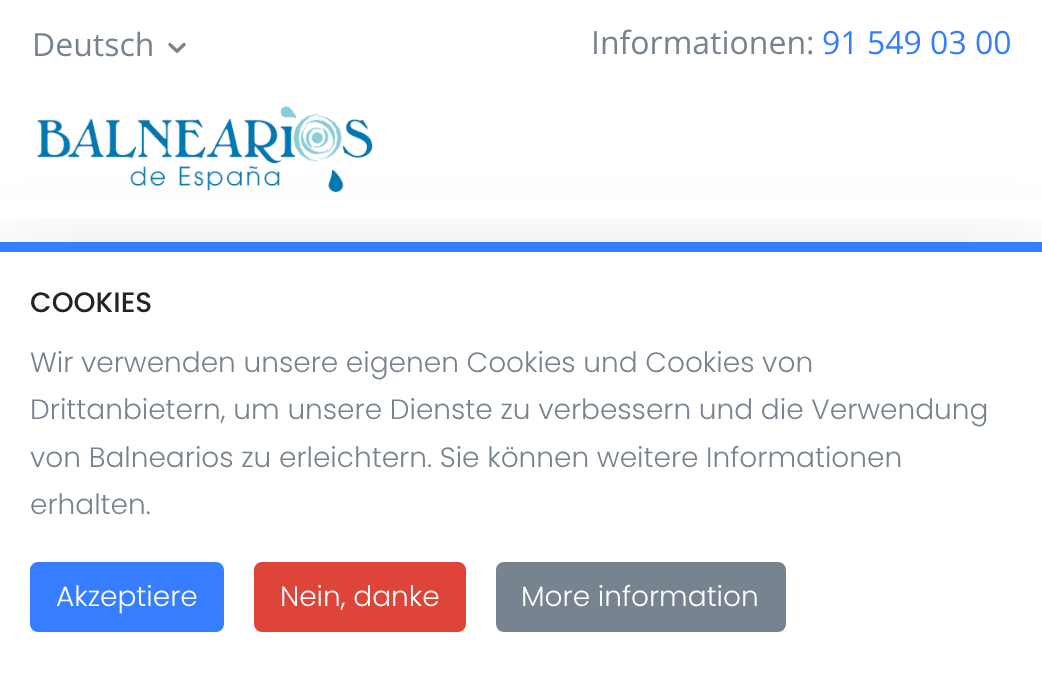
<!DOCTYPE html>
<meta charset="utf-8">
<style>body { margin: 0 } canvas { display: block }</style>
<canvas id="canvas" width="1042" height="691"></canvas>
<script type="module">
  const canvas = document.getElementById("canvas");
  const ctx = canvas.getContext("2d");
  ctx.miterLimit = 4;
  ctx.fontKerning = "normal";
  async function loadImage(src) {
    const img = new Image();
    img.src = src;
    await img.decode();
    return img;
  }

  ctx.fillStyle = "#ffffff";
  ctx.fillRect(0, 0, 1042, 691);
  ctx.fillStyle = "rgba(0, 0, 0, 0.18)";
  ctx.filter = "blur(48px)";
  ctx.beginPath();
  ctx.rect(0, 274, 1042, 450);
  ctx.fill();
  ctx.filter = "none";
  ctx.fillStyle = "#ffffff";
  ctx.fillRect(0, 198, 1042, 20);
  ctx.font = "32px Open Sans";
  ctx.fillStyle = "#77838f";
  ctx.fillText("Deutsch", 32, 56);
  ctx.drawImage(await loadImage("img1.png"), 168, 42, 18, 11);
  ctx.fillText("Informationen:", 591, 54);
  ctx.fillStyle = "#377dff";
  ctx.fillText("91 549 03 00", 822, 54);
  ctx.drawImage(await loadImage("img2.png"), 37, 105, 336, 87);
  ctx.fillStyle = "#ffffff";
  ctx.fillRect(0, 252, 1042, 439);
  ctx.fillStyle = "#377dff";
  ctx.fillRect(0, 242, 1042, 10);
  ctx.font = "500 28px Poppins";
  ctx.fillStyle = "#212529";
  ctx.fillText("COOKIES", 30, 312);
  ctx.font = "300 28px Poppins";
  ctx.fillStyle = "#77838f";
  ctx.fillText("Wir verwenden unsere eigenen Cookies und Cookies von", 30, 372);
  ctx.fillText("Drittanbietern, um unsere Dienste zu verbessern und die Verwendung", 30, 419);
  ctx.fillText("von Balnearios zu erleichtern. Sie können weitere Informationen", 30, 467);
  ctx.fillText("erhalten.", 30, 514);
  ctx.fillStyle = "#377dff";
  ctx.beginPath();
  ctx.roundRect(31, 563, 192, 68, 7);
  ctx.fill();
  ctx.strokeStyle = "#377dff";
  ctx.lineWidth = 2;
  ctx.stroke();
  ctx.fillStyle = "#ffffff";
  ctx.fillText("Akzeptiere", 56, 606);
  ctx.fillStyle = "#de4437";
  ctx.beginPath();
  ctx.roundRect(255, 563, 210, 68, 7);
  ctx.fill();
  ctx.strokeStyle = "#de4437";
  ctx.stroke();
  ctx.fillStyle = "#ffffff";
  ctx.fillText("Nein, danke", 280, 606);
  ctx.fillStyle = "#77838f";
  ctx.beginPath();
  ctx.roundRect(497, 563, 288, 68, 7);
  ctx.fill();
  ctx.strokeStyle = "#77838f";
  ctx.stroke();
  ctx.fillStyle = "#ffffff";
  ctx.fillText("More information", 521, 606);
</script>
